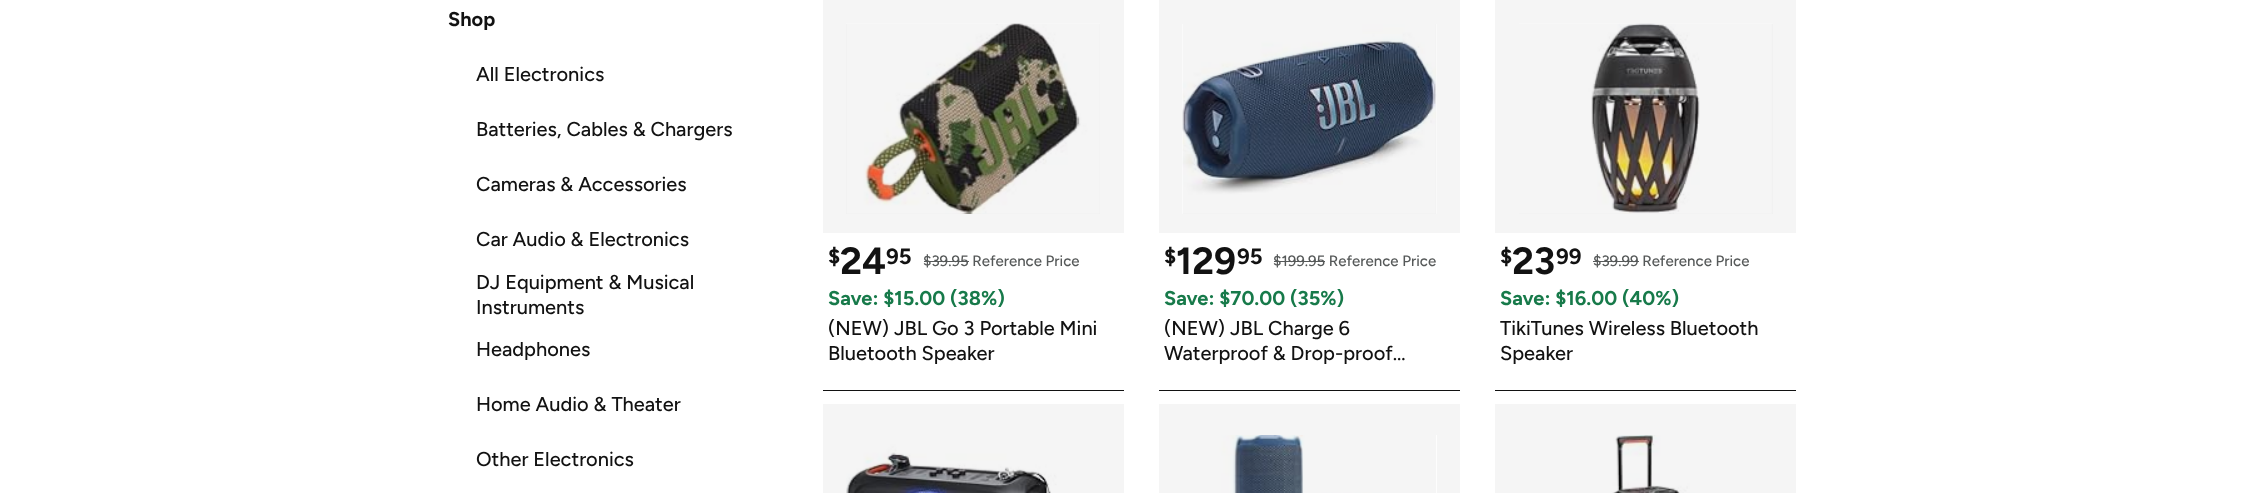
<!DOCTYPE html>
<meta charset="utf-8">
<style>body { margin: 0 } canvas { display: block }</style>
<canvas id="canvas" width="2245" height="493"></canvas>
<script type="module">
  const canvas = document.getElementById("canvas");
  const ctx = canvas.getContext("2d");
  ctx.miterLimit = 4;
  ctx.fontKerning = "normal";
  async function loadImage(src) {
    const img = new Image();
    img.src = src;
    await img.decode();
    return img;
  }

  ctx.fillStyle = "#ffffff";
  ctx.fillRect(0, 0, 2245, 493);
  ctx.font = "bold 20px Figtree";
  ctx.fillStyle = "#121212";
  ctx.fillText("Shop", 448, 26);
  ctx.font = "500 20px Figtree";
  ctx.fillText("All Electronics", 476, 81);
  ctx.fillText("Batteries, Cables & Chargers", 476, 136);
  ctx.fillText("Cameras & Accessories", 476, 191);
  ctx.fillText("Car Audio & Electronics", 476, 246);
  ctx.fillText("DJ Equipment & Musical", 476, 289);
  ctx.fillText("Instruments", 476, 314);
  ctx.fillText("Headphones", 476, 356);
  ctx.fillText("Home Audio & Theater", 476, 411);
  ctx.fillText("Other Electronics", 476, 466);
  ctx.fillRect(823, 390, 301, 1);
  ctx.fillStyle = "#f5f5f5";
  ctx.fillRect(823, 0, 301, 233);
  ctx.fillStyle = "#ebebeb";
  ctx.fillRect(846, 24, 254, 190);
  ctx.drawImage(await loadImage("img1.png"), 846, 23, 254, 191);
  ctx.font = "bold 22px Figtree";
  ctx.fillStyle = "#121212";
  ctx.fillText("$", 828, 264);
  ctx.font = "bold 38px Figtree";
  ctx.fillText("24", 840, 274);
  ctx.font = "bold 22px Figtree";
  ctx.fillText("95", 886, 264);
  ctx.font = "500 15px Figtree";
  ctx.fillStyle = "#565959";
  ctx.fillText("$39.95 Reference Price", 923, 266);
  ctx.fillRect(924, 261, 45, 1);
  ctx.font = "bold 20px Figtree";
  ctx.fillStyle = "#177a4a";
  ctx.fillText("Save: $15.00 (38%)", 828, 305);
  ctx.font = "500 20px Figtree";
  ctx.fillStyle = "#121212";
  ctx.fillText("(NEW) JBL Go 3 Portable Mini", 828, 335);
  ctx.fillText("Bluetooth Speaker", 828, 360);
  ctx.fillRect(1159, 390, 301, 1);
  ctx.fillStyle = "#f5f5f5";
  ctx.fillRect(1159, 0, 301, 233);
  ctx.fillStyle = "#ebebeb";
  ctx.fillRect(1183, 24, 253, 190);
  ctx.drawImage(await loadImage("img2.png"), 1182, 24, 255, 190);
  ctx.font = "bold 22px Figtree";
  ctx.fillStyle = "#121212";
  ctx.fillText("$", 1164, 264);
  ctx.font = "bold 38px Figtree";
  ctx.fillText("129", 1176, 274);
  ctx.font = "bold 22px Figtree";
  ctx.fillText("95", 1237, 264);
  ctx.font = "500 15px Figtree";
  ctx.fillStyle = "#565959";
  ctx.fillText("$199.95 Reference Price", 1273, 266);
  ctx.fillRect(1274, 261, 51, 1);
  ctx.font = "bold 20px Figtree";
  ctx.fillStyle = "#177a4a";
  ctx.fillText("Save: $70.00 (35%)", 1164, 305);
  ctx.font = "500 20px Figtree";
  ctx.fillStyle = "#121212";
  ctx.fillText("(NEW) JBL Charge 6", 1164, 335);
  ctx.fillText("Waterproof & Drop-proof…", 1164, 360);
  ctx.fillRect(1495, 390, 301, 1);
  ctx.fillStyle = "#f5f5f5";
  ctx.fillRect(1495, 0, 301, 233);
  ctx.fillStyle = "#ebebeb";
  ctx.fillRect(1519, 24, 254, 190);
  ctx.drawImage(await loadImage("img3.png"), 1519, 23, 254, 191);
  ctx.font = "bold 22px Figtree";
  ctx.fillStyle = "#121212";
  ctx.fillText("$", 1500, 264);
  ctx.font = "bold 38px Figtree";
  ctx.fillText("23", 1512, 274);
  ctx.font = "bold 22px Figtree";
  ctx.fillText("99", 1556, 264);
  ctx.font = "500 15px Figtree";
  ctx.fillStyle = "#565959";
  ctx.fillText("$39.99 Reference Price", 1593, 266);
  ctx.fillRect(1593, 261, 46, 1);
  ctx.font = "bold 20px Figtree";
  ctx.fillStyle = "#177a4a";
  ctx.fillText("Save: $16.00 (40%)", 1500, 305);
  ctx.font = "500 20px Figtree";
  ctx.fillStyle = "#121212";
  ctx.fillText("TikiTunes Wireless Bluetooth", 1500, 335);
  ctx.fillText("Speaker", 1500, 360);
  ctx.fillStyle = "#f5f5f5";
  ctx.fillRect(823, 404, 301, 89);
  ctx.drawImage(await loadImage("img4.png"), 846, 435, 254, 58);
  ctx.fillRect(1159, 404, 301, 89);
  ctx.drawImage(await loadImage("img5.png"), 1183, 435, 254, 58);
  ctx.fillRect(1495, 404, 301, 89);
  ctx.drawImage(await loadImage("img6.png"), 1519, 435, 254, 58);
</script>
